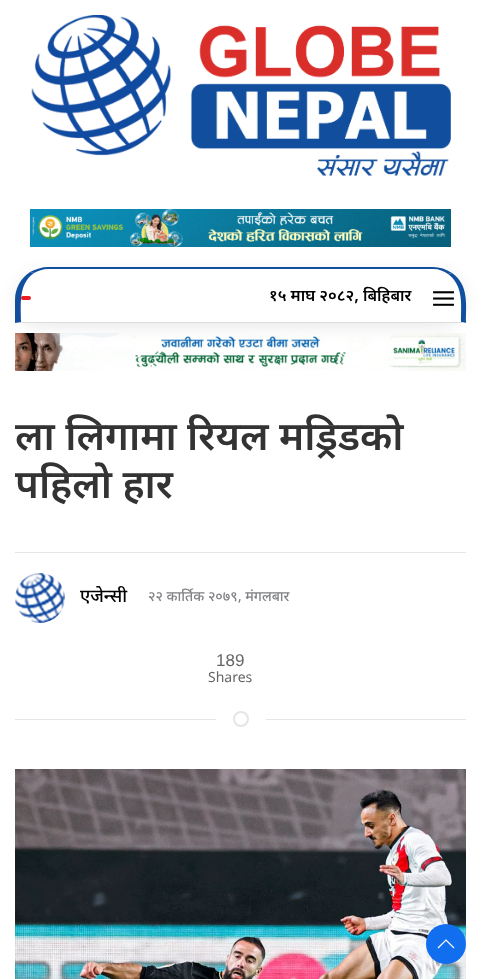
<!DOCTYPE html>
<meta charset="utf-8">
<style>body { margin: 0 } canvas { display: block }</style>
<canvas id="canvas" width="481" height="979"></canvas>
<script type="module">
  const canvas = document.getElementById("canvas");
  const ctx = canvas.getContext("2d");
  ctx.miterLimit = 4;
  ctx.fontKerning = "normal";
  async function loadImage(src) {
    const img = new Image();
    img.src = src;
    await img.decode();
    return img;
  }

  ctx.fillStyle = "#ffffff";
  ctx.fillRect(0, 0, 481, 979);
  ctx.drawImage(await loadImage("img1.png"), 31, 15, 420, 161);
  ctx.drawImage(await loadImage("img2.png"), 30, 209, 421, 38);
  ctx.drawImage(await loadImage("img4.png"), 15, 333, 451, 38);
  ctx.save();
  ctx.beginPath();
  ctx.moveTo(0, 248);
  ctx.lineTo(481, 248);
  ctx.lineTo(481, 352);
  ctx.lineTo(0, 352);
  ctx.closePath();
  ctx.moveTo(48, 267);
  ctx.lineTo(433, 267);
  ctx.bezierCurveTo(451, 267, 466, 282, 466, 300);
  ctx.lineTo(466, 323);
  ctx.lineTo(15, 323);
  ctx.lineTo(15, 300);
  ctx.bezierCurveTo(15, 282, 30, 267, 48, 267);
  ctx.closePath();
  ctx.clip("evenodd");
  ctx.fillStyle = "rgba(0, 0, 0, 0.08)";
  ctx.filter = "blur(7.5px)";
  ctx.beginPath();
  ctx.roundRect(15, 272, 451, 56, 33);
  ctx.fill();
  ctx.filter = "none";
  ctx.restore();
  ctx.fillStyle = "#114f9e";
  ctx.beginPath();
  ctx.moveTo(48, 267);
  ctx.bezierCurveTo(42, 267, 36, 269, 30, 272);
  ctx.lineTo(34, 273);
  ctx.bezierCurveTo(38, 271, 43, 269, 48, 269);
  ctx.lineTo(433, 269);
  ctx.bezierCurveTo(439, 269, 444, 271, 448, 274);
  ctx.lineTo(452, 273);
  ctx.bezierCurveTo(446, 269, 440, 267, 433, 267);
  ctx.closePath();
  ctx.fill();
  ctx.beginPath();
  ctx.moveTo(466, 323);
  ctx.bezierCurveTo(466, 304, 469, 285, 452, 273);
  ctx.lineTo(448, 274);
  ctx.bezierCurveTo(464, 286, 461, 305, 461, 322);
  ctx.closePath();
  ctx.fill();
  ctx.fillStyle = "#dddddd";
  ctx.beginPath();
  ctx.moveTo(466, 323);
  ctx.lineTo(461, 322);
  ctx.lineTo(21, 322);
  ctx.lineTo(15, 323);
  ctx.closePath();
  ctx.fill();
  ctx.fillStyle = "#114f9e";
  ctx.beginPath();
  ctx.moveTo(15, 323);
  ctx.lineTo(21, 322);
  ctx.bezierCurveTo(21, 305, 18, 284, 34, 273);
  ctx.lineTo(30, 272);
  ctx.bezierCurveTo(21, 278, 15, 288, 15, 300);
  ctx.closePath();
  ctx.fill();
  ctx.fillStyle = "#ed1c24";
  ctx.beginPath();
  ctx.roundRect(21, 296, 10, 4, 2);
  ctx.fill();
  ctx.font = "600 16px Noto Sans Devanagari";
  ctx.fillStyle = "#000000";
  ctx.fillText("१५ माघ २०८२, बिहिबार", 269, 301);
  ctx.drawImage(await loadImage("img3.png"), 433, 291, 21, 15);
  ctx.font = "600 40px Noto Sans Devanagari";
  ctx.fillStyle = "#333333";
  ctx.fillText("ला लिगामा रियल मड्रिडको", 15, 450);
  ctx.fillText("पहिलो हार", 15, 498);
  ctx.fillStyle = "#e5e5e5";
  ctx.fillRect(15, 552, 451, 1);
  ctx.drawImage(await loadImage("img5.png"), 15, 573, 50, 50);
  ctx.font = "500 18px Noto Sans Devanagari";
  ctx.fillStyle = "#000000";
  ctx.fillText("एजेन्सी", 80, 602);
  ctx.font = "500 14px Noto Sans Devanagari";
  ctx.fillStyle = "#818285";
  ctx.fillText("२२ कार्तिक २०७९, मंगलबार", 148, 601);
  ctx.font = "17px Liberation Sans";
  ctx.fillStyle = "#666666";
  ctx.fillText("189", 216, 666);
  ctx.font = "14px Noto Sans Devanagari";
  ctx.fillText("Shares", 208, 682);
  ctx.beginPath();
  ctx.arc(241, 719, 7, 0, Math.PI * 2);
  ctx.strokeStyle = "#e5e5e5";
  ctx.lineWidth = 2;
  ctx.stroke();
  ctx.fillStyle = "#e5e5e5";
  ctx.fillRect(15, 719, 201, 1);
  ctx.fillRect(266, 719, 200, 1);
  ctx.drawImage(await loadImage("img6.png"), 15, 769, 451, 210);
  ctx.fillStyle = "#116fef";
  ctx.beginPath();
  ctx.arc(446, 944, 20, 0, Math.PI * 2);
  ctx.fill();
  ctx.beginPath();
  ctx.moveTo(438, 948);
  ctx.lineTo(446, 940);
  ctx.lineTo(454, 948);
  ctx.strokeStyle = "#ffffff";
  ctx.lineWidth = 1.2;
  ctx.stroke();
</script>
